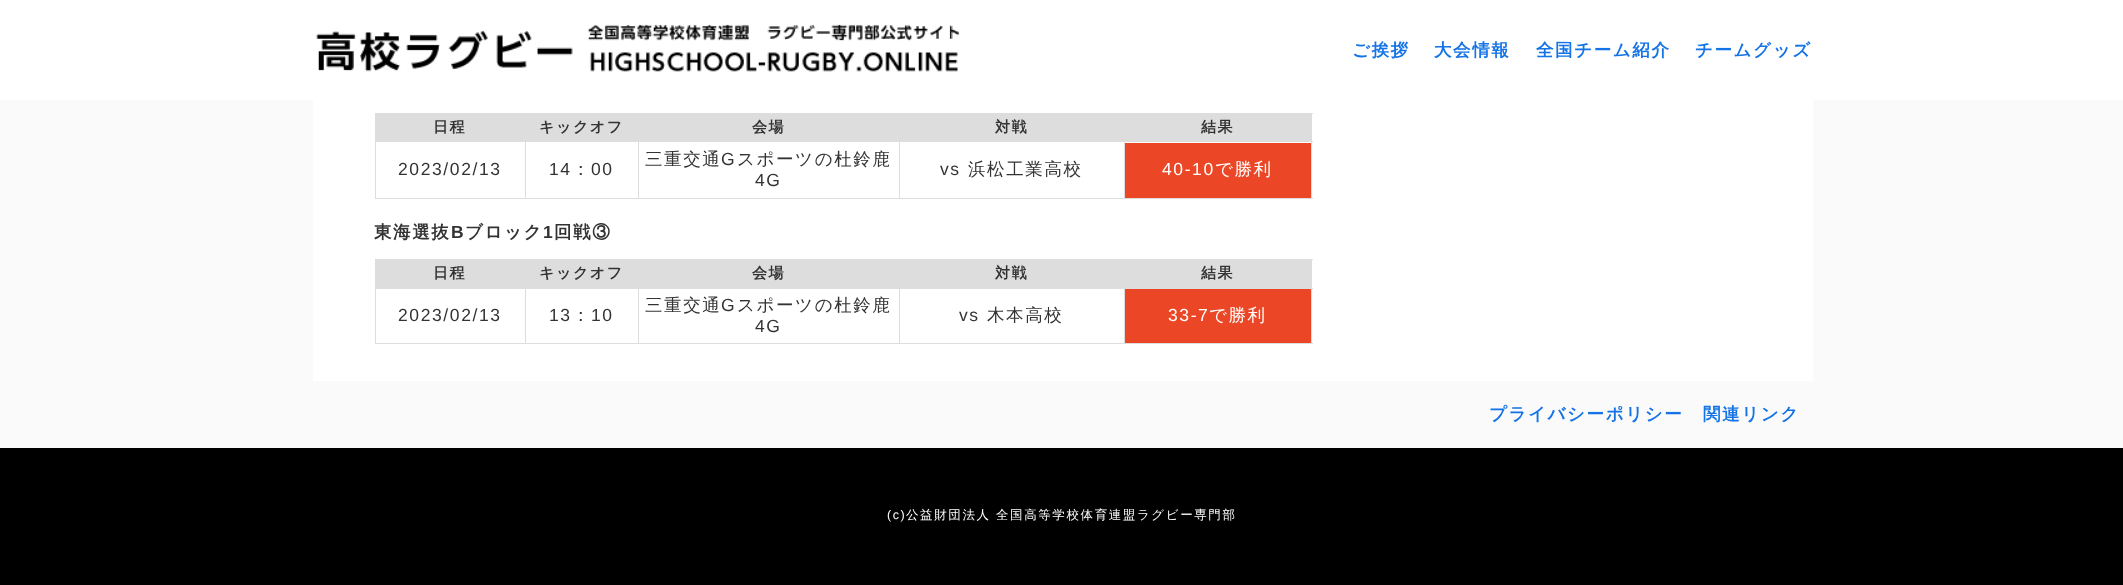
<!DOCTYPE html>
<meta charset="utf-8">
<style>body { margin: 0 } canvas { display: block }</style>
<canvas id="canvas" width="2123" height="585"></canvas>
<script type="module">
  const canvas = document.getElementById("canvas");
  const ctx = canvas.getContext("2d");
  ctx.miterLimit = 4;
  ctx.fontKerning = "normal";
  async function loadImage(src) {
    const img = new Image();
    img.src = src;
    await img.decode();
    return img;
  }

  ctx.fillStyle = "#fafafa";
  ctx.fillRect(0, 0, 2123, 585);
  ctx.fillStyle = "#ffffff";
  ctx.fillRect(0, 0, 2123, 100);
  ctx.drawImage(await loadImage("img1.png"), 316, 24, 644, 48);
  ctx.letterSpacing = "1.6px";
  ctx.font = "bold 17.5px WenQuanYi Zen Hei";
  ctx.fillStyle = "#1473e6";
  ctx.fillText("ご挨拶", 1352, 56);
  ctx.fillText("大会情報", 1434, 56);
  ctx.fillText("全国チーム紹介", 1536, 56);
  ctx.fillText("チームグッズ", 1695, 56);
  ctx.fillStyle = "#ffffff";
  ctx.fillRect(313, 100, 1500, 281);
  ctx.fillStyle = "#dddddd";
  ctx.fillRect(376, 113, 149, 28);
  ctx.fillRect(1124, 113, 189, 1);
  ctx.fillRect(1311, 113, 1, 30);
  ctx.fillRect(1124, 141, 189, 1);
  ctx.fillRect(1124, 113, 1, 30);
  ctx.fillRect(899, 141, 226, 1);
  ctx.fillRect(899, 113, 1, 30);
  ctx.fillRect(638, 141, 262, 1);
  ctx.fillRect(638, 113, 1, 30);
  ctx.fillRect(525, 141, 114, 1);
  ctx.fillRect(525, 113, 1, 30);
  ctx.fillRect(375, 141, 151, 1);
  ctx.fillRect(375, 113, 1, 30);
  ctx.font = "bold 15px WenQuanYi Zen Hei";
  ctx.fillStyle = "#333333";
  ctx.fillText("日程", 433, 132);
  ctx.fillStyle = "#dddddd";
  ctx.fillRect(526, 113, 112, 28);
  ctx.fillStyle = "#333333";
  ctx.fillText("キックオフ", 539, 132);
  ctx.fillStyle = "#dddddd";
  ctx.fillRect(639, 113, 260, 28);
  ctx.fillStyle = "#333333";
  ctx.fillText("会場", 752, 132);
  ctx.fillStyle = "#dddddd";
  ctx.fillRect(900, 113, 224, 28);
  ctx.fillStyle = "#333333";
  ctx.fillText("対戦", 995, 132);
  ctx.fillStyle = "#dddddd";
  ctx.fillRect(1125, 114, 186, 27);
  ctx.fillStyle = "#333333";
  ctx.fillText("結果", 1201, 132);
  ctx.fillStyle = "#dddddd";
  ctx.fillRect(1311, 141, 1, 58);
  ctx.fillRect(1124, 198, 189, 1);
  ctx.fillRect(1124, 141, 1, 58);
  ctx.fillRect(899, 198, 226, 1);
  ctx.fillRect(899, 141, 1, 58);
  ctx.fillRect(638, 198, 262, 1);
  ctx.fillRect(638, 141, 1, 58);
  ctx.fillRect(525, 198, 114, 1);
  ctx.fillRect(525, 141, 1, 58);
  ctx.fillRect(375, 198, 151, 1);
  ctx.fillRect(375, 141, 1, 58);
  ctx.font = "17.5px Liberation Sans";
  ctx.fillStyle = "#333333";
  ctx.fillText("2023/02/13", 398, 175);
  ctx.fillText("14", 549, 175);
  ctx.font = "500 17.5px WenQuanYi Zen Hei";
  ctx.fillText("：", 572, 175);
  ctx.font = "17.5px Liberation Sans";
  ctx.fillText("00", 591, 175);
  ctx.font = "500 17.5px WenQuanYi Zen Hei";
  ctx.fillText("三重交通", 645, 165);
  ctx.font = "17.5px Liberation Sans";
  ctx.fillText("G", 721, 165);
  ctx.font = "500 17.5px WenQuanYi Zen Hei";
  ctx.fillText("スポーツの杜鈴鹿", 737, 165);
  ctx.font = "17.5px Liberation Sans";
  ctx.fillText("4G", 755, 186);
  ctx.fillText("vs", 940, 175);
  ctx.font = "500 17.5px WenQuanYi Zen Hei";
  ctx.fillText("浜松工業高校", 968, 175);
  ctx.fillStyle = "#eb4726";
  ctx.fillRect(1125, 143, 186, 55);
  ctx.font = "17.5px Liberation Sans";
  ctx.fillStyle = "#ffffff";
  ctx.fillText("40-10", 1162, 175);
  ctx.font = "500 17.5px WenQuanYi Zen Hei";
  ctx.fillText("で勝利", 1215, 175);
  ctx.font = "bold 17.5px WenQuanYi Zen Hei";
  ctx.fillStyle = "#333333";
  ctx.fillText("東海選抜", 374, 238);
  ctx.font = "bold 17.5px Liberation Sans";
  ctx.fillText("B", 451, 238);
  ctx.font = "bold 17.5px WenQuanYi Zen Hei";
  ctx.fillText("ブロック", 465, 238);
  ctx.font = "bold 17.5px Liberation Sans";
  ctx.fillText("1", 543, 238);
  ctx.font = "bold 17.5px WenQuanYi Zen Hei";
  ctx.fillText("回戦③", 554, 238);
  ctx.fillStyle = "#dddddd";
  ctx.fillRect(375, 259, 749, 29);
  ctx.font = "bold 15px WenQuanYi Zen Hei";
  ctx.fillStyle = "#333333";
  ctx.fillText("日程", 433, 278);
  ctx.fillText("キックオフ", 539, 278);
  ctx.fillText("会場", 752, 278);
  ctx.fillText("対戦", 995, 278);
  ctx.fillStyle = "#dddddd";
  ctx.fillRect(1124, 260, 187, 28);
  ctx.fillRect(1124, 259, 189, 1);
  ctx.fillRect(1311, 259, 1, 30);
  ctx.fillRect(375, 288, 938, 1);
  ctx.fillStyle = "#333333";
  ctx.fillText("結果", 1201, 278);
  ctx.fillStyle = "#dddddd";
  ctx.fillRect(1311, 288, 1, 56);
  ctx.fillRect(1124, 343, 189, 1);
  ctx.fillRect(1124, 288, 1, 56);
  ctx.fillRect(899, 343, 226, 1);
  ctx.fillRect(899, 288, 1, 56);
  ctx.fillRect(638, 343, 262, 1);
  ctx.fillRect(638, 288, 1, 56);
  ctx.fillRect(525, 343, 114, 1);
  ctx.fillRect(525, 288, 1, 56);
  ctx.fillRect(375, 343, 151, 1);
  ctx.fillRect(375, 288, 1, 56);
  ctx.font = "17.5px Liberation Sans";
  ctx.fillStyle = "#333333";
  ctx.fillText("2023/02/13", 398, 321);
  ctx.fillText("13", 549, 321);
  ctx.font = "500 17.5px WenQuanYi Zen Hei";
  ctx.fillText("：", 572, 321);
  ctx.font = "17.5px Liberation Sans";
  ctx.fillText("10", 591, 321);
  ctx.font = "500 17.5px WenQuanYi Zen Hei";
  ctx.fillText("三重交通", 645, 311);
  ctx.font = "17.5px Liberation Sans";
  ctx.fillText("G", 721, 311);
  ctx.font = "500 17.5px WenQuanYi Zen Hei";
  ctx.fillText("スポーツの杜鈴鹿", 737, 311);
  ctx.font = "17.5px Liberation Sans";
  ctx.fillText("4G", 755, 332);
  ctx.fillText("vs", 959, 321);
  ctx.font = "500 17.5px WenQuanYi Zen Hei";
  ctx.fillText("木本高校", 987, 321);
  ctx.fillStyle = "#eb4726";
  ctx.fillRect(1125, 289, 186, 54);
  ctx.font = "17.5px Liberation Sans";
  ctx.fillStyle = "#ffffff";
  ctx.fillText("33-7", 1168, 321);
  ctx.font = "500 17.5px WenQuanYi Zen Hei";
  ctx.fillText("で勝利", 1209, 321);
  ctx.font = "bold 17.5px WenQuanYi Zen Hei";
  ctx.fillStyle = "#1473e6";
  ctx.fillText("プライバシーポリシー", 1489, 420);
  ctx.fillText("関連リンク", 1703, 420);
  ctx.fillStyle = "#000000";
  ctx.fillRect(0, 448, 2123, 137);
  ctx.font = "12.5px Liberation Sans";
  ctx.fillStyle = "#ffffff";
  ctx.fillText("(c)", 887, 519);
  ctx.font = "500 12.5px WenQuanYi Zen Hei";
  ctx.fillText("公益財団法人 全国高等学校体育連盟ラグビー専門部", 906, 519);
</script>
